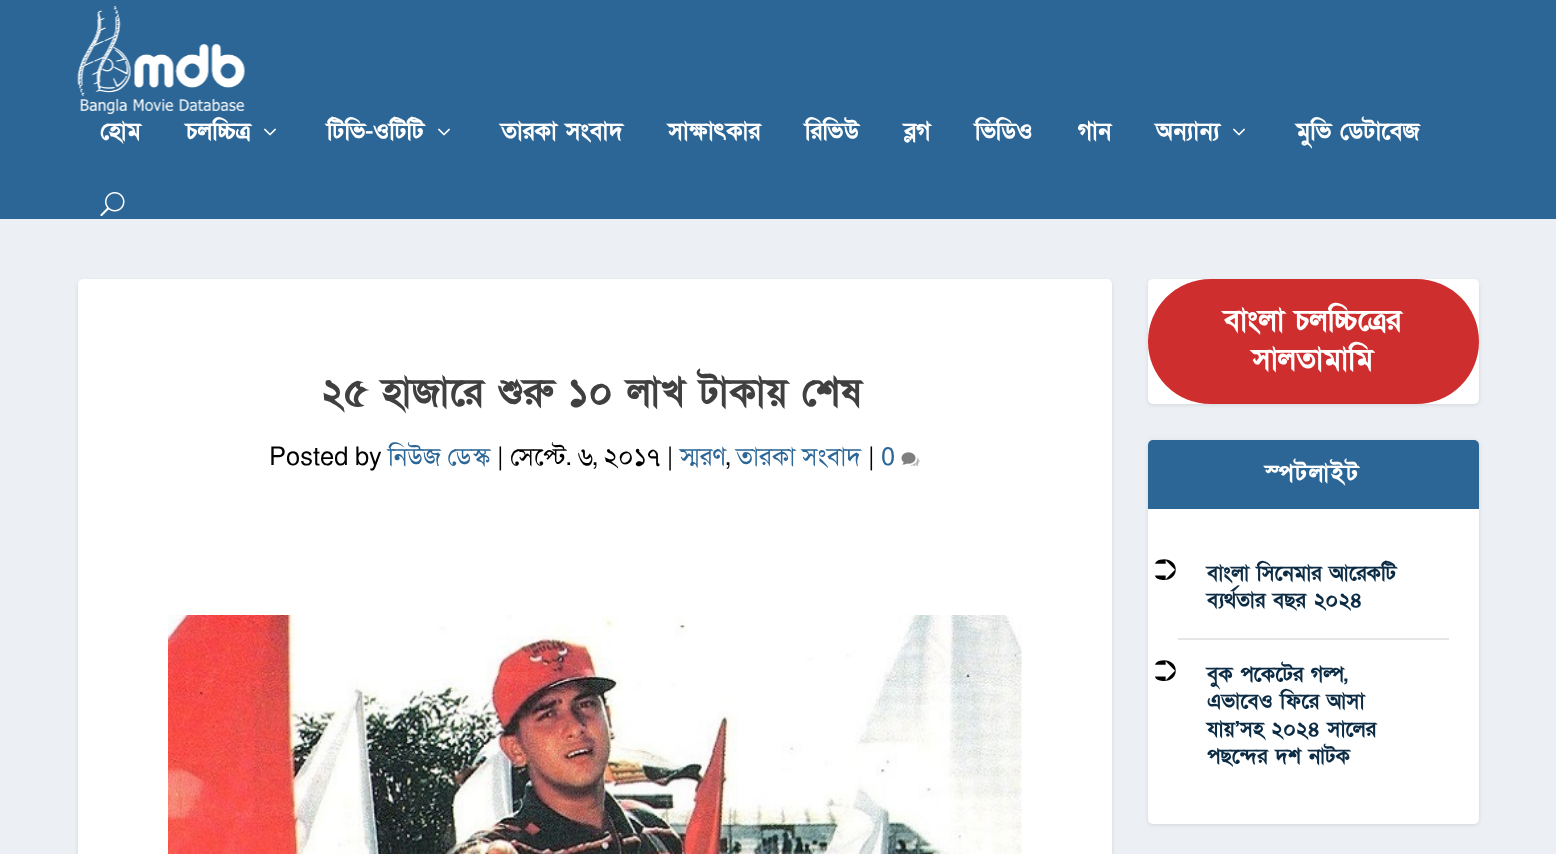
<!DOCTYPE html>
<meta charset="utf-8">
<style>body { margin: 0 } canvas { display: block }</style>
<canvas id="canvas" width="1556" height="854"></canvas>
<script type="module">
  const canvas = document.getElementById("canvas");
  const ctx = canvas.getContext("2d");
  ctx.miterLimit = 4;
  ctx.fontKerning = "normal";
  async function loadImage(src) {
    const img = new Image();
    img.src = src;
    await img.decode();
    return img;
  }

  ctx.fillStyle = "#ecf0f5";
  ctx.fillRect(0, 0, 1556, 854);
  ctx.fillStyle = "#2c6696";
  ctx.fillRect(0, 0, 1556, 219);
  ctx.drawImage(await loadImage("img1.png"), 77, 6, 168, 108);
  ctx.font = "bold 24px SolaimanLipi";
  ctx.fillStyle = "#ffffff";
  ctx.fillText("হোম", 100, 139);
  ctx.fillText("চলচ্চিত্র", 186, 139);
  ctx.drawImage(await loadImage("img2.png"), 264, 128, 12, 8);
  ctx.fillText("টিভি-ওটিটি", 327, 139);
  ctx.drawImage(await loadImage("img2.png"), 438, 128, 12, 8);
  ctx.fillText("তারকা সংবাদ", 501, 139);
  ctx.fillText("সাক্ষাৎকার", 668, 139);
  ctx.fillText("রিভিউ", 805, 139);
  ctx.fillText("ব্লগ", 904, 139);
  ctx.fillText("ভিডিও", 975, 139);
  ctx.fillText("গান", 1078, 139);
  ctx.fillText("অন্যান্য", 1156, 139);
  ctx.drawImage(await loadImage("img2.png"), 1233, 128, 12, 8);
  ctx.fillText("মুভি ডেটাবেজ", 1296, 139);
  ctx.drawImage(await loadImage("img3.png"), 100, 192, 25, 25);
  ctx.fillStyle = "rgba(0, 0, 0, 0.1)";
  ctx.filter = "blur(2px)";
  ctx.beginPath();
  ctx.roundRect(78, 281, 1034, 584, 5);
  ctx.fill();
  ctx.filter = "none";
  ctx.fillStyle = "#ffffff";
  ctx.beginPath();
  ctx.roundRect(78, 279, 1034, 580, 5);
  ctx.fill();
  ctx.letterSpacing = "0.75px";
  ctx.wordSpacing = "-1px";
  ctx.font = "bold 39px SolaimanLipi";
  ctx.fillStyle = "#404040";
  ctx.fillText("২৫ হাজারে শুরু ১০ লাখ টাকায় শেষ", 321, 405);
  ctx.letterSpacing = "0px";
  ctx.wordSpacing = "0px";
  ctx.font = "25.5px SolaimanLipi";
  ctx.fillStyle = "#000000";
  ctx.fillText("Posted by", 269, 465);
  ctx.fillStyle = "#2c6696";
  ctx.fillText("নিউজ ডেস্ক", 388, 465);
  ctx.fillStyle = "#000000";
  ctx.fillText("| সেপ্টে. ৬, ২০১৭ |", 497, 465);
  ctx.fillStyle = "#2c6696";
  ctx.fillText("স্মরণ", 680, 465);
  ctx.fillStyle = "#000000";
  ctx.fillText(",", 726, 465);
  ctx.fillStyle = "#2c6696";
  ctx.fillText("তারকা সংবাদ", 736, 465);
  ctx.fillStyle = "#000000";
  ctx.fillText("|", 868, 465);
  ctx.fillStyle = "#2c6696";
  ctx.fillText("0", 881, 465);
  ctx.drawImage(await loadImage("img4.png"), 901, 452, 19, 14);
  ctx.drawImage(await loadImage("img5.png"), 168, 615, 854, 239);
  ctx.fillStyle = "rgba(0, 0, 0, 0.1)";
  ctx.filter = "blur(2px)";
  ctx.beginPath();
  ctx.roundRect(1148, 281, 331, 124, 5);
  ctx.fill();
  ctx.filter = "none";
  ctx.fillStyle = "#ffffff";
  ctx.beginPath();
  ctx.roundRect(1148, 279, 331, 125, 5);
  ctx.fill();
  ctx.fillStyle = "#cf2e2e";
  ctx.beginPath();
  ctx.roundRect(1148, 279, 331, 125, 62.5);
  ctx.fill();
  ctx.font = "bold 30px SolaimanLipi";
  ctx.fillStyle = "#ffffff";
  ctx.fillText("বাংলা চলচ্চিত্রের", 1224, 330);
  ctx.fillText("সালতামামি", 1252, 369);
  ctx.fillStyle = "rgba(0, 0, 0, 0.1)";
  ctx.filter = "blur(2px)";
  ctx.beginPath();
  ctx.roundRect(1148, 441, 331, 384, 5);
  ctx.fill();
  ctx.filter = "none";
  ctx.fillStyle = "#ffffff";
  ctx.beginPath();
  ctx.roundRect(1148, 440, 331, 384, 5);
  ctx.fill();
  ctx.fillStyle = "#2c6696";
  ctx.beginPath();
  ctx.roundRect(1148, 440, 331, 69, [5, 5, 0, 0]);
  ctx.fill();
  ctx.letterSpacing = "1.75px";
  ctx.font = "bold 24px SolaimanLipi";
  ctx.fillStyle = "#ffffff";
  ctx.fillText("স্পটলাইট", 1265, 481);
  ctx.fillStyle = "#e6e6e6";
  ctx.fillRect(1178, 638, 271, 2);
  ctx.letterSpacing = "0px";
  ctx.font = "30px FreeSans";
  ctx.fillStyle = "#000000";
  ctx.fillText("➲", 1154, 580);
  ctx.font = "bold 21px SolaimanLipi";
  ctx.fillStyle = "#0c2b44";
  ctx.fillText("বাংলা সিনেমার আরেকটি", 1207, 580);
  ctx.fillText("ব্যর্থতার বছর ২০২৪", 1207, 607);
  ctx.font = "30px FreeSans";
  ctx.fillStyle = "#000000";
  ctx.fillText("➲", 1154, 681);
  ctx.font = "bold 21px SolaimanLipi";
  ctx.fillStyle = "#0c2b44";
  ctx.fillText("বুক পকেটের গল্প,", 1207, 681);
  ctx.fillText("এভাবেও ফিরে আসা", 1207, 708);
  ctx.fillText("যায়’সহ ২০২৪ সালের", 1207, 736);
  ctx.fillText("পছন্দের দশ নাটক", 1207, 763);
</script>
